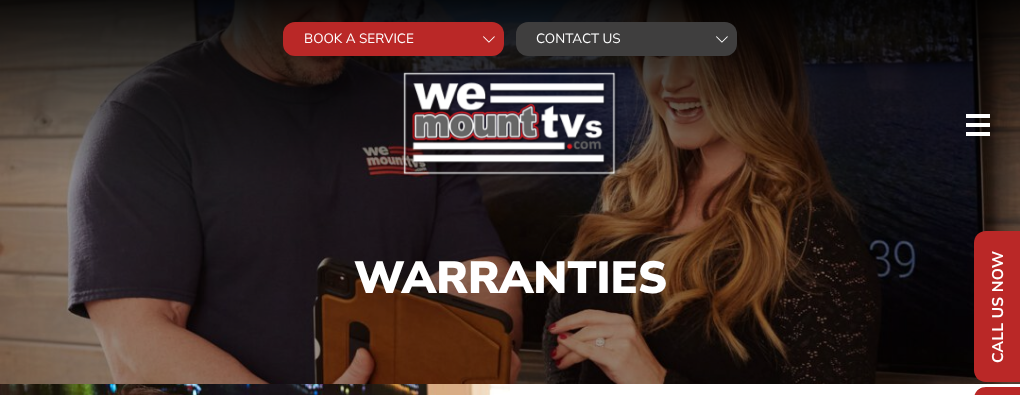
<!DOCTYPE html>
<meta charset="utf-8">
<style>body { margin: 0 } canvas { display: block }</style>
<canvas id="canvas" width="1020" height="395"></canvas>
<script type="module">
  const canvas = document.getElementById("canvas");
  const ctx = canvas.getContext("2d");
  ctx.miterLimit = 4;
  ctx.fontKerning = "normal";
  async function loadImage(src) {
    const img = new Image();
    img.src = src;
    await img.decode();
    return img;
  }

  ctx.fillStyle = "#ffffff";
  ctx.fillRect(0, 0, 1020, 395);
  ctx.drawImage(await loadImage("img4.png"), 0, 0, 1020, 384);
  ctx.fillStyle = "#ba2827";
  ctx.beginPath();
  ctx.roundRect(283, 22, 221, 34, 12);
  ctx.fill();
  ctx.font = "13.5px Nunito Sans";
  ctx.fillStyle = "#ffffff";
  ctx.fillText("BOOK A SERVICE", 304, 43);
  ctx.drawImage(await loadImage("img1.png"), 483, 36, 12, 7);
  ctx.fillStyle = "#3f3e3e";
  ctx.beginPath();
  ctx.roundRect(516, 22, 221, 34, 12);
  ctx.fill();
  ctx.fillStyle = "#ffffff";
  ctx.fillText("CONTACT US", 536, 43);
  ctx.drawImage(await loadImage("img2.png"), 716, 36, 12, 7);
  ctx.drawImage(await loadImage("img3.png"), 403, 72, 215, 105);
  ctx.fillRect(966, 114, 24, 4);
  ctx.fillRect(966, 123, 24, 4);
  ctx.fillRect(966, 132, 24, 4);
  ctx.font = "900 45px Nunito Sans";
  ctx.fillText("WARRANTIES", 354, 293);
  ctx.fillStyle = "#ba2827";
  ctx.beginPath();
  ctx.moveTo(974, 370);
  ctx.lineTo(974, 243);
  ctx.bezierCurveTo(974, 236, 979, 231, 986, 231);
  ctx.lineTo(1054, 231);
  ctx.bezierCurveTo(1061, 231, 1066, 236, 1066, 243);
  ctx.lineTo(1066, 370);
  ctx.bezierCurveTo(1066, 377, 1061, 382, 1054, 382);
  ctx.lineTo(986, 382);
  ctx.bezierCurveTo(979, 382, 974, 377, 974, 370);
  ctx.closePath();
  ctx.fill();
  ctx.letterSpacing = "0.25px";
  ctx.font = "bold 15.5px Nunito Sans";
  ctx.fillStyle = "#ffffff";
  ctx.save();
  ctx.translate(1003, 363);
  ctx.rotate(-90 * Math.PI / 180);
  ctx.fillText("CALL US NOW", 0, 0);
  ctx.restore();
  ctx.drawImage(await loadImage("img5.png"), 0, 384, 510, 11);
  ctx.fillStyle = "#ba2827";
  ctx.beginPath();
  ctx.moveTo(974, 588);
  ctx.lineTo(974, 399);
  ctx.bezierCurveTo(974, 392, 979, 387, 986, 387);
  ctx.lineTo(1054, 387);
  ctx.bezierCurveTo(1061, 387, 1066, 392, 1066, 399);
  ctx.lineTo(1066, 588);
  ctx.bezierCurveTo(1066, 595, 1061, 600, 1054, 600);
  ctx.lineTo(986, 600);
  ctx.bezierCurveTo(979, 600, 974, 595, 974, 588);
  ctx.closePath();
  ctx.fill();
</script>
